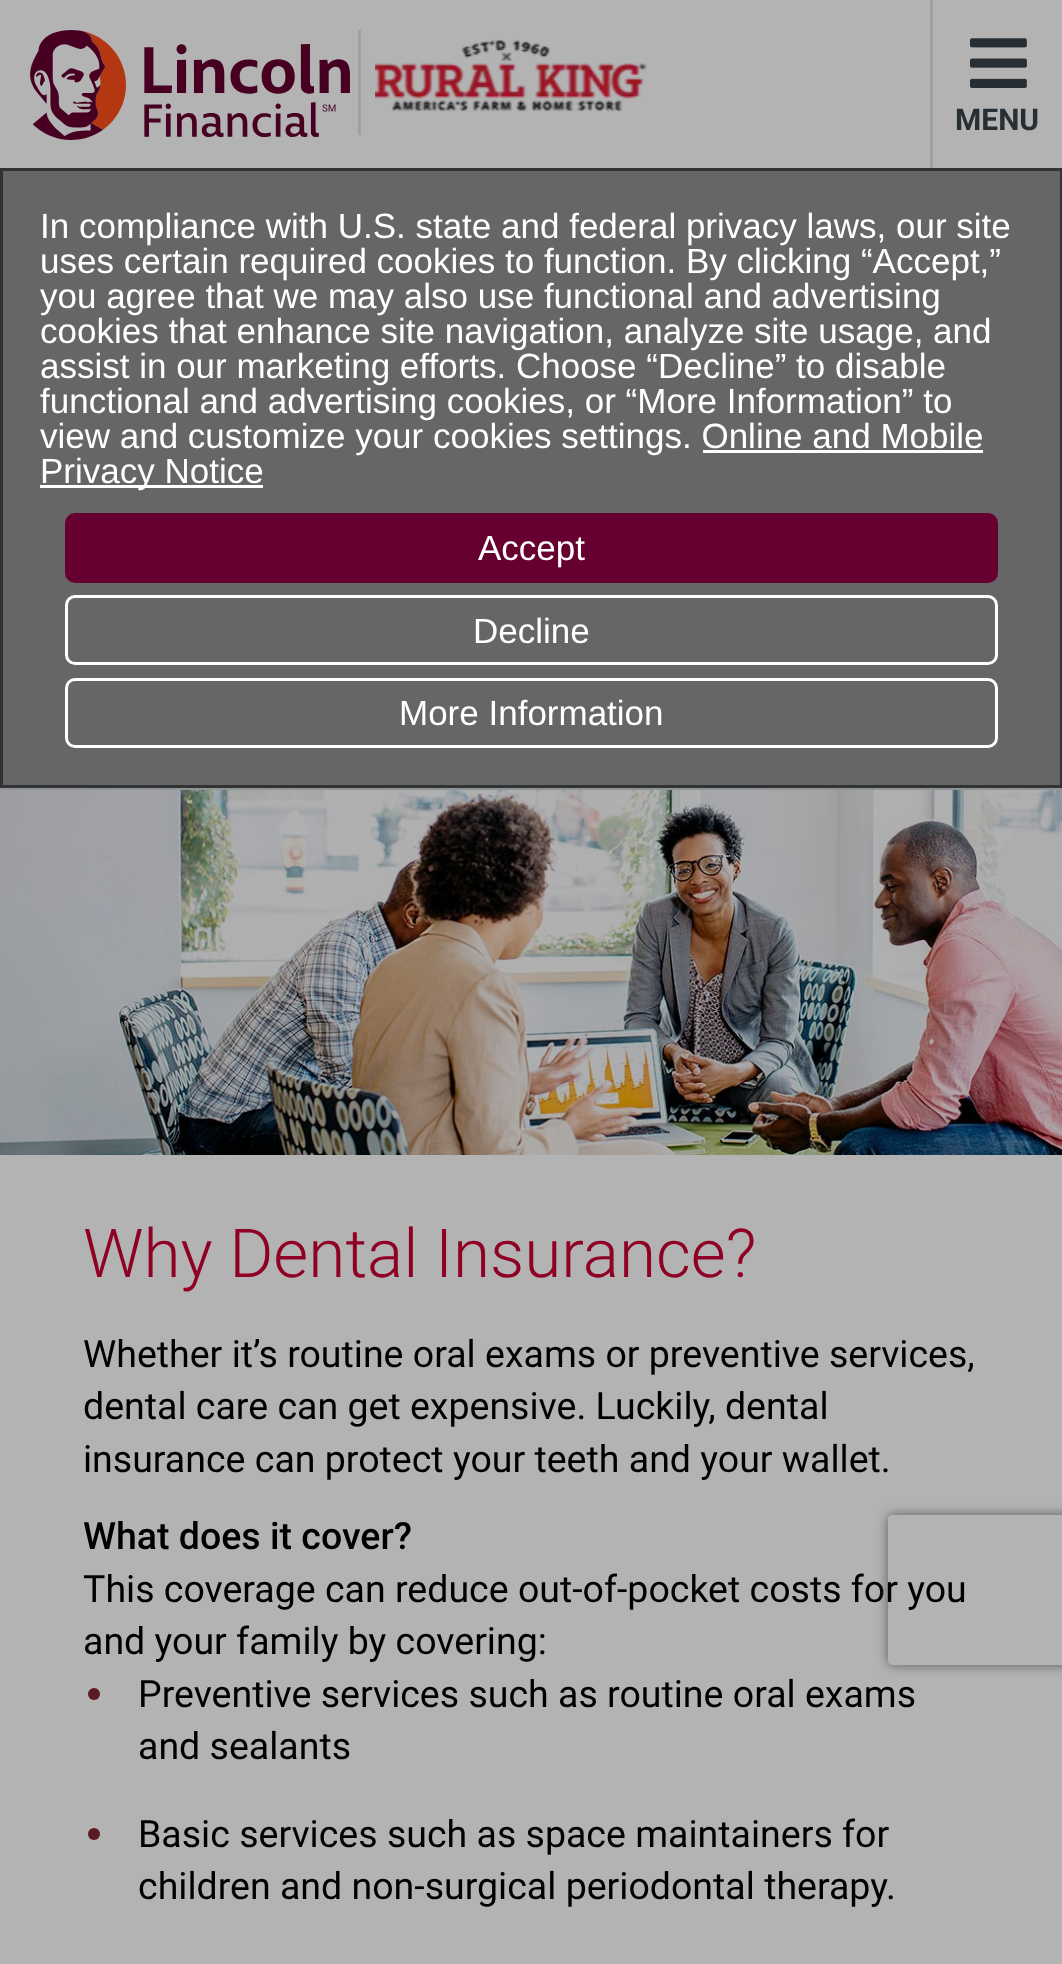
<!DOCTYPE html>
<meta charset="utf-8">
<style>body { margin: 0 } canvas { display: block }</style>
<canvas id="canvas" width="1062" height="1964"></canvas>
<script type="module">
  const canvas = document.getElementById("canvas");
  const ctx = canvas.getContext("2d");
  ctx.miterLimit = 4;
  ctx.fontKerning = "normal";
  async function loadImage(src) {
    const img = new Image();
    img.src = src;
    await img.decode();
    return img;
  }

  ctx.fillStyle = "#b3b3b3";
  ctx.fillRect(0, 0, 1062, 1964);
  ctx.drawImage(await loadImage("img1.png"), 30, 30, 320, 110);
  ctx.fillStyle = "#9fa0a1";
  ctx.fillRect(358, 30, 3, 105);
  ctx.drawImage(await loadImage("img2.png"), 375, 39, 272, 73);
  ctx.fillRect(930, 0, 3, 168);
  ctx.drawImage(await loadImage("img3.png"), 970, 38, 57, 50);
  ctx.font = "bold 30px Roboto";
  ctx.fillStyle = "#272e34";
  ctx.fillText("MENU", 955, 130);
  ctx.fillStyle = "#666666";
  ctx.beginPath();
  ctx.rect(1.5, 169.5, 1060, 617);
  ctx.fill();
  ctx.strokeStyle = "#333333";
  ctx.lineWidth = 3;
  ctx.stroke();
  ctx.font = "35px Liberation Sans";
  ctx.fillStyle = "#ffffff";
  ctx.fillText("In compliance with U.S. state and federal privacy laws, our site", 40, 238);
  ctx.fillText("uses certain required cookies to function. By clicking “Accept,”", 40, 273);
  ctx.fillText("you agree that we may also use functional and advertising", 40, 308);
  ctx.fillText("cookies that enhance site navigation, analyze site usage, and", 40, 343);
  ctx.fillText("assist in our marketing efforts. Choose “Decline” to disable", 40, 378);
  ctx.fillText("functional and advertising cookies, or “More Information” to", 40, 413);
  ctx.fillText("view and customize your cookies settings. Online and Mobile", 40, 448);
  ctx.fillRect(40, 485, 223, 3);
  ctx.fillText("Privacy Notice", 40, 483);
  ctx.fillRect(703, 450, 280, 3);
  ctx.fillStyle = "#650030";
  ctx.beginPath();
  ctx.roundRect(66.5, 514.5, 930, 67, 8.5);
  ctx.fill();
  ctx.strokeStyle = "#650030";
  ctx.stroke();
  ctx.fillStyle = "#ffffff";
  ctx.fillText("Accept", 478, 560);
  ctx.beginPath();
  ctx.roundRect(66.5, 596.5, 930, 67, 8.5);
  ctx.strokeStyle = "#ffffff";
  ctx.stroke();
  ctx.fillText("Decline", 473, 643);
  ctx.beginPath();
  ctx.roundRect(66.5, 679.5, 930, 67, 8.5);
  ctx.stroke();
  ctx.fillText("More Information", 399, 725);
  ctx.fillStyle = "#8e9599";
  ctx.fillRect(0, 788, 1062, 2);
  ctx.drawImage(await loadImage("img4.png"), 0, 790, 1062, 365);
  ctx.font = "300 67.5px Roboto";
  ctx.fillStyle = "#8f0024";
  ctx.fillText("Why Dental Insurance?", 83, 1277);
  ctx.font = "37.5px Roboto";
  ctx.fillStyle = "#000000";
  ctx.fillText("Whether it’s routine oral exams or preventive services,", 83, 1367);
  ctx.fillText("dental care can get expensive. Luckily, dental", 83, 1419);
  ctx.fillText("insurance can protect your teeth and your wallet.", 83, 1472);
  ctx.font = "500 37.5px Roboto";
  ctx.fillText("What does it cover?", 83, 1549);
  ctx.font = "37.5px Roboto";
  ctx.fillText("This coverage can reduce out-of-pocket costs for you", 83, 1602);
  ctx.fillText("and your family by covering:", 83, 1654);
  ctx.fillStyle = "#5b1924";
  ctx.beginPath();
  ctx.arc(94, 1694, 6, 0, Math.PI * 2);
  ctx.fill();
  ctx.fillStyle = "#000000";
  ctx.fillText("Preventive services such as routine oral exams", 138, 1707);
  ctx.fillText("and sealants", 138, 1759);
  ctx.fillStyle = "#5b1924";
  ctx.beginPath();
  ctx.arc(94, 1834, 6, 0, Math.PI * 2);
  ctx.fill();
  ctx.fillStyle = "#000000";
  ctx.fillText("Basic services such as space maintainers for", 138, 1847);
  ctx.fillText("children and non-surgical periodontal therapy.", 138, 1899);
  ctx.save();
  ctx.beginPath();
  ctx.moveTo(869, 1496);
  ctx.lineTo(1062, 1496);
  ctx.lineTo(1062, 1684);
  ctx.lineTo(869, 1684);
  ctx.closePath();
  ctx.moveTo(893, 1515);
  ctx.lineTo(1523, 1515);
  ctx.bezierCurveTo(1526, 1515, 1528, 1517, 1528, 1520);
  ctx.lineTo(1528, 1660);
  ctx.bezierCurveTo(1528, 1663, 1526, 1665, 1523, 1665);
  ctx.lineTo(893, 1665);
  ctx.bezierCurveTo(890, 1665, 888, 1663, 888, 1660);
  ctx.lineTo(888, 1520);
  ctx.bezierCurveTo(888, 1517, 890, 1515, 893, 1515);
  ctx.closePath();
  ctx.clip("evenodd");
  ctx.fillStyle = "#5a5a5a";
  ctx.filter = "blur(6px)";
  ctx.beginPath();
  ctx.roundRect(888, 1515, 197, 150, 5);
  ctx.fill();
  ctx.filter = "none";
  ctx.restore();
</script>
